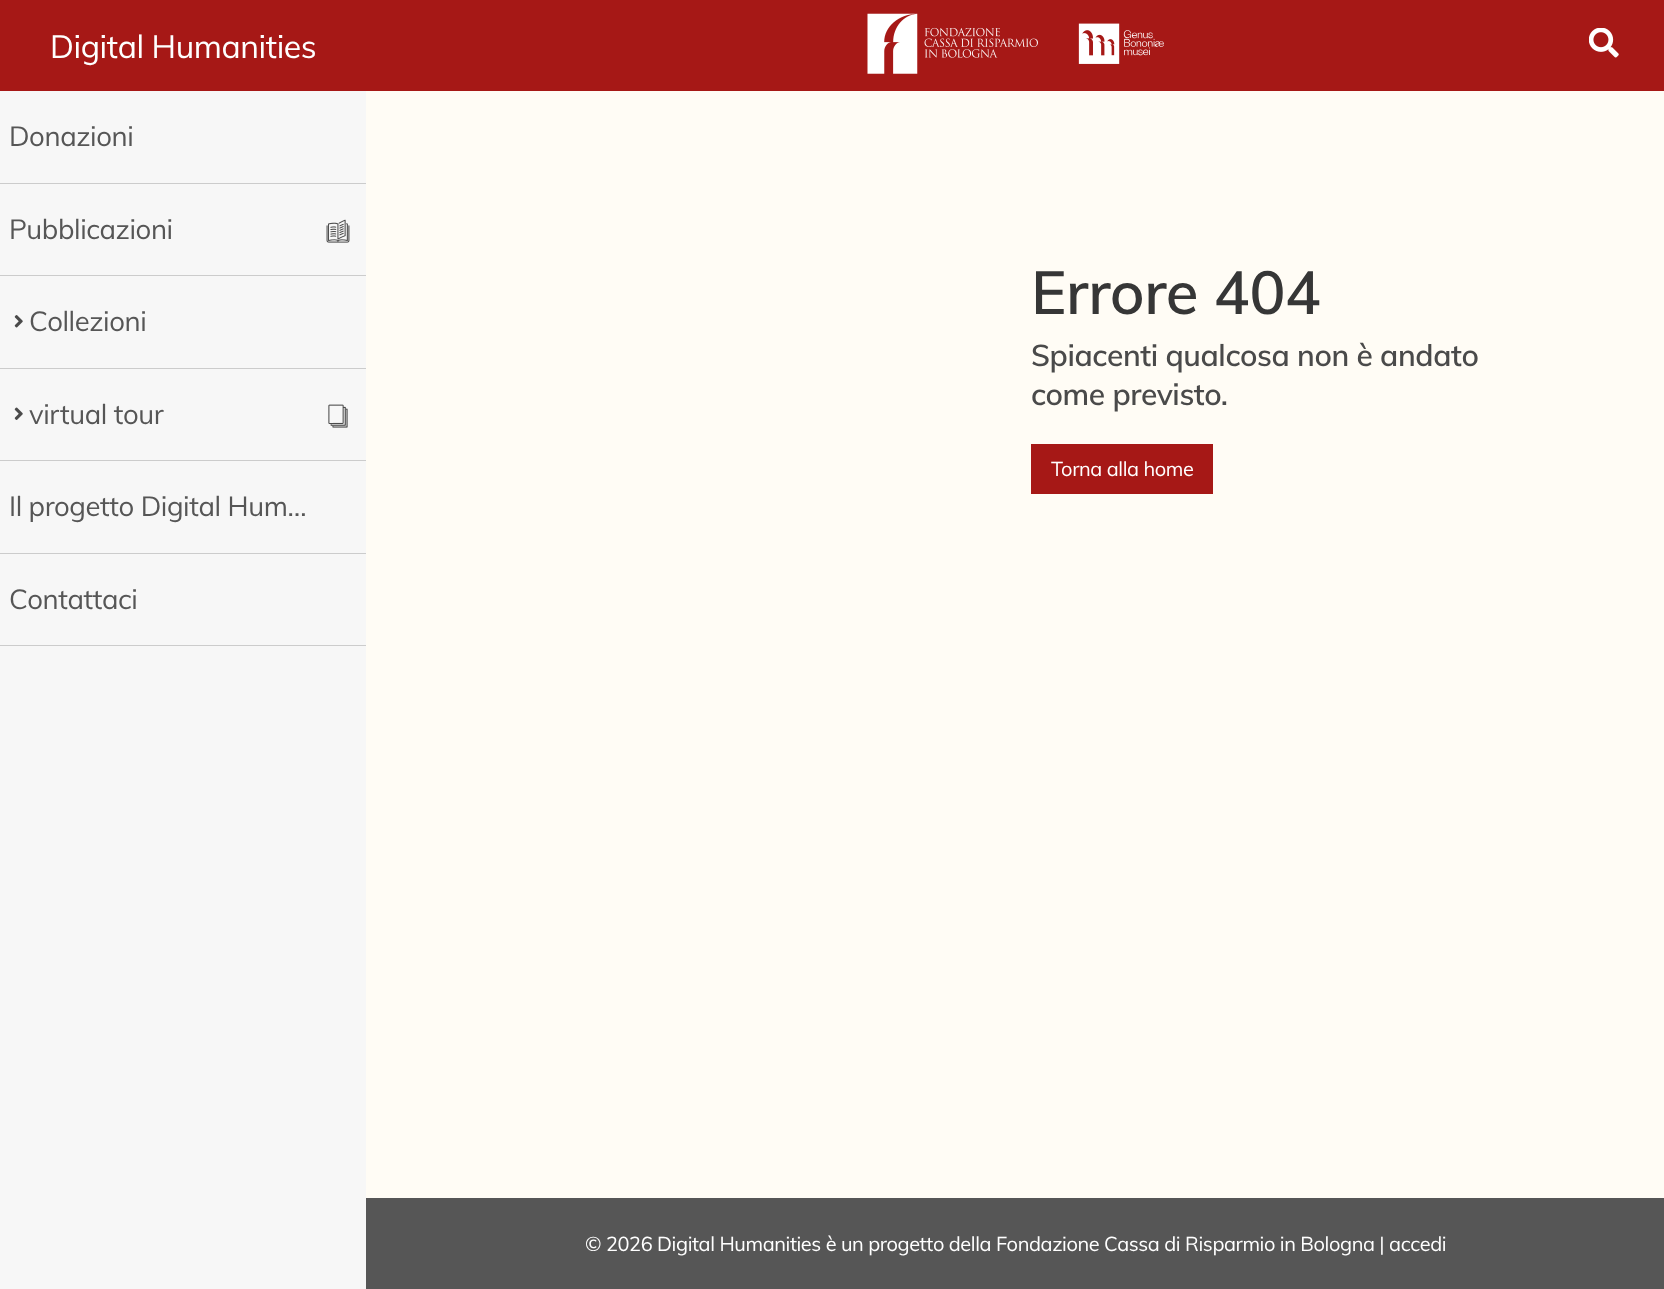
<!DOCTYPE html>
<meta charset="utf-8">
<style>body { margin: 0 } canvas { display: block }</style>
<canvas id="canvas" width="1664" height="1289"></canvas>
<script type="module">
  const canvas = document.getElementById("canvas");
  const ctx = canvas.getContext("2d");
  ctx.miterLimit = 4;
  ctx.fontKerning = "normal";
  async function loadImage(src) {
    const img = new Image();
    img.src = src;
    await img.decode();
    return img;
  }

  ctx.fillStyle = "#fffcf5";
  ctx.fillRect(0, 0, 1664, 1289);
  ctx.fillStyle = "#a61816";
  ctx.fillRect(0, 0, 1664, 91);
  ctx.letterSpacing = "-0.4px";
  ctx.font = "32px Muli";
  ctx.fillStyle = "#ffffff";
  ctx.fillText("Digital Humanities", 50, 58);
  ctx.fillStyle = "#f7f7f7";
  ctx.fillRect(0, 91, 366, 1198);
  ctx.fillStyle = "#cccccc";
  ctx.fillRect(0, 183, 366, 1);
  ctx.font = "27.5px Muli";
  ctx.fillStyle = "#565656";
  ctx.fillText("Donazioni", 9, 146);
  ctx.fillStyle = "#cccccc";
  ctx.fillRect(0, 275, 366, 1);
  ctx.fillStyle = "#565656";
  ctx.fillText("Pubblicazioni", 9, 239);
  ctx.drawImage(await loadImage("img1.png"), 326, 219, 24, 24);
  ctx.fillStyle = "#cccccc";
  ctx.fillRect(0, 368, 366, 1);
  ctx.drawImage(await loadImage("img2.png"), 14, 315, 9, 13);
  ctx.fillStyle = "#565656";
  ctx.fillText("Collezioni", 29, 331);
  ctx.fillStyle = "#cccccc";
  ctx.fillRect(0, 460, 366, 1);
  ctx.drawImage(await loadImage("img3.png"), 14, 407, 9, 13);
  ctx.fillStyle = "#565656";
  ctx.fillText("virtual tour", 29, 424);
  ctx.drawImage(await loadImage("img4.png"), 328, 404, 20, 24);
  ctx.fillStyle = "#cccccc";
  ctx.fillRect(0, 553, 366, 1);
  ctx.fillStyle = "#565656";
  ctx.fillText("Il progetto Digital Hum…", 9, 516);
  ctx.fillStyle = "#cccccc";
  ctx.fillRect(0, 645, 366, 1);
  ctx.fillStyle = "#565656";
  ctx.fillText("Contattaci", 9, 609);
  ctx.drawImage(await loadImage("img5.png"), 867, 13, 171, 61);
  ctx.drawImage(await loadImage("img6.png"), 1078, 23, 86, 41);
  ctx.drawImage(await loadImage("img7.png"), 1589, 28, 30, 30);
  ctx.font = "600 60px Muli";
  ctx.fillStyle = "#363636";
  ctx.fillText("Errore 404", 1031, 314);
  ctx.font = "600 30px Muli";
  ctx.fillStyle = "#4a4a4a";
  ctx.fillText("Spiacenti qualcosa non è andato", 1031, 366);
  ctx.fillText("come previsto.", 1031, 405);
  ctx.fillStyle = "#a61816";
  ctx.fillRect(1031, 444, 182, 50);
  ctx.font = "20px Muli";
  ctx.fillStyle = "#ffffff";
  ctx.fillText("Torna alla home", 1051, 476);
  ctx.fillStyle = "#565656";
  ctx.fillRect(366, 1198, 1298, 91);
  ctx.fillStyle = "#ffffff";
  ctx.fillText("© 2026 Digital Humanities è un progetto della Fondazione Cassa di Risparmio in Bologna | accedi", 585, 1251);
</script>
